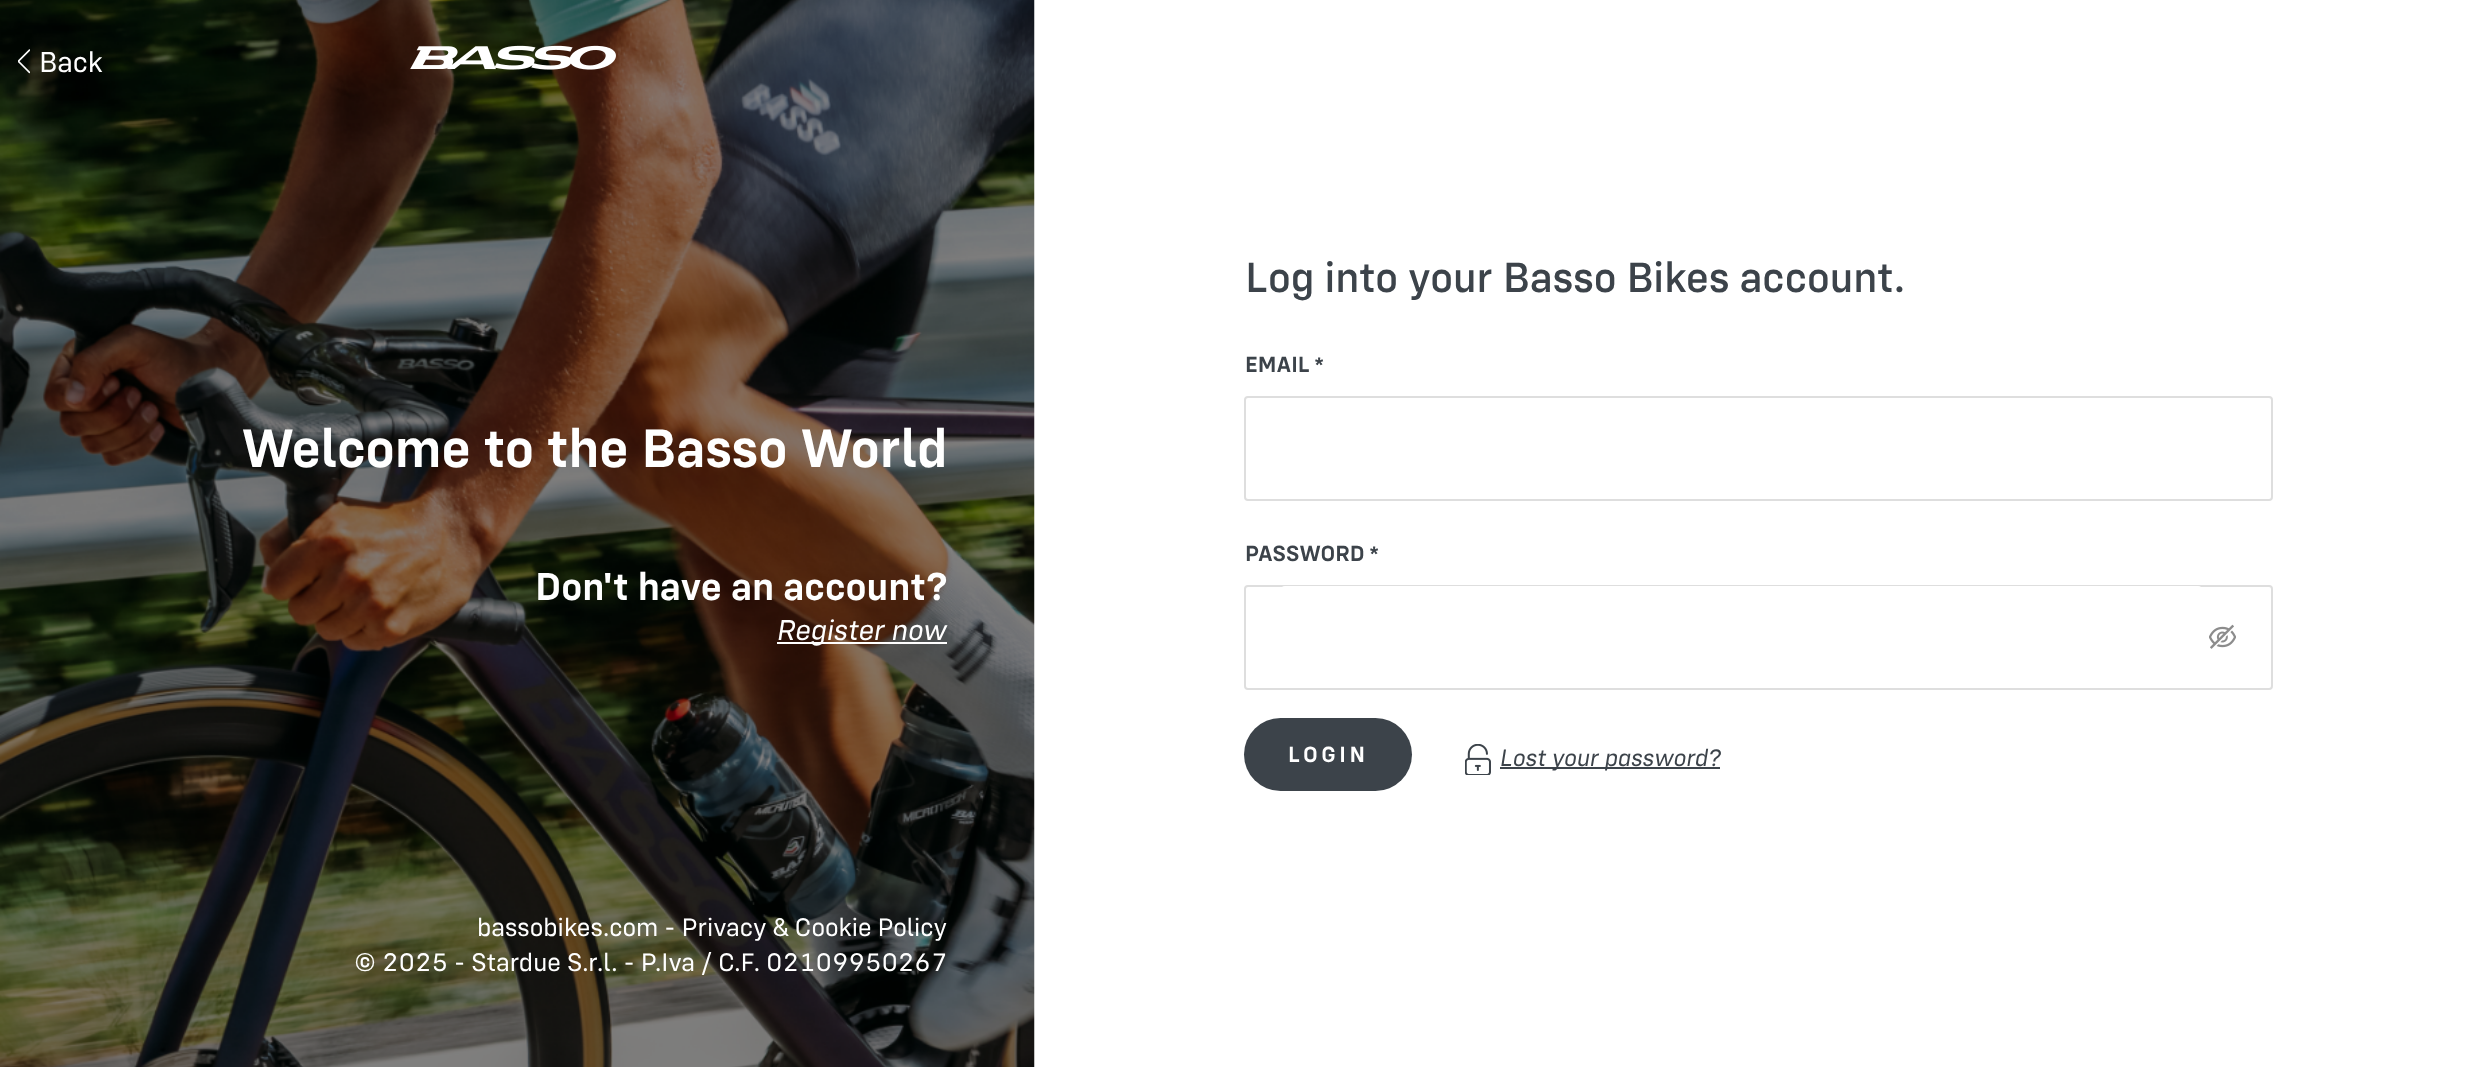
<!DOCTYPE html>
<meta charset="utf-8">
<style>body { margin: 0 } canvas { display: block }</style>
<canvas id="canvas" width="2482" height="1067"></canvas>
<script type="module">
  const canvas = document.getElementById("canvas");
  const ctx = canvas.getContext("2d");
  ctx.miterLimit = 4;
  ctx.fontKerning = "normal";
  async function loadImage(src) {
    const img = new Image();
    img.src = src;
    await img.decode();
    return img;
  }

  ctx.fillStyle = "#ffffff";
  ctx.fillRect(0, 0, 2482, 1067);
  ctx.drawImage(await loadImage("img1.png"), 0, 0, 1035, 1067);
  ctx.drawImage(await loadImage("img2.png"), 18, 49, 12, 25);
  ctx.font = "29.75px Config";
  ctx.fillText("Back", 39, 72);
  ctx.drawImage(await loadImage("img3.png"), 410, 45, 206, 25);
  ctx.font = "600 56px Config";
  ctx.fillText("Welcome to the Basso World", 241, 467);
  ctx.font = "600 40.25px Config";
  ctx.fillText("Don't have an account?", 535, 600);
  ctx.fillRect(777, 642, 170, 2);
  ctx.font = "italic 29.75px Config";
  ctx.fillText("Register now", 777, 640);
  ctx.font = "26.25px Config";
  ctx.fillText("bassobikes.com - Privacy & Cookie Policy", 477, 936);
  ctx.fillText("©", 354, 971);
  ctx.font = "26.25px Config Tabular";
  ctx.fillText("2025 - Stardue S.r.l. - P.Iva / C.F. 02109950267", 382, 971);
  ctx.font = "500 43.75px Config";
  ctx.fillStyle = "#3c434a";
  ctx.fillText("Log into your Basso Bikes account.", 1245, 292);
  ctx.font = "600 22.75px Config";
  ctx.fillText("EMAIL", 1245, 372);
  ctx.font = "bold 21px Liberation Sans";
  ctx.fillText("*", 1315, 372);
  ctx.beginPath();
  ctx.roundRect(1245, 397, 1027, 103, 3);
  ctx.strokeStyle = "#dedede";
  ctx.lineWidth = 2;
  ctx.stroke();
  ctx.font = "600 22.75px Config";
  ctx.fillText("PASSWORD", 1245, 561);
  ctx.font = "bold 21px Liberation Sans";
  ctx.fillText("*", 1370, 561);
  ctx.beginPath();
  ctx.roundRect(1245, 586, 1027, 103, 3);
  ctx.stroke();
  ctx.fillStyle = "#ffffff";
  ctx.beginPath();
  ctx.roundRect(1281, 586, 921, 102, 4);
  ctx.fill();
  ctx.drawImage(await loadImage("img4.png"), 2209, 624, 27, 25);
  ctx.fillStyle = "#3c434a";
  ctx.beginPath();
  ctx.roundRect(1244, 718, 168, 73, 36.5);
  ctx.fill();
  ctx.letterSpacing = "3.5px";
  ctx.font = "600 22.75px Config";
  ctx.fillStyle = "#ffffff";
  ctx.fillText("LOGIN", 1288, 762);
  ctx.drawImage(await loadImage("img5.png"), 1465, 744, 26, 31);
  ctx.fillStyle = "#3c434a";
  ctx.fillRect(1500, 767, 220, 2);
  ctx.letterSpacing = "0px";
  ctx.font = "italic 24.5px Config";
  ctx.fillText("Lost your password?", 1500, 766);
</script>
